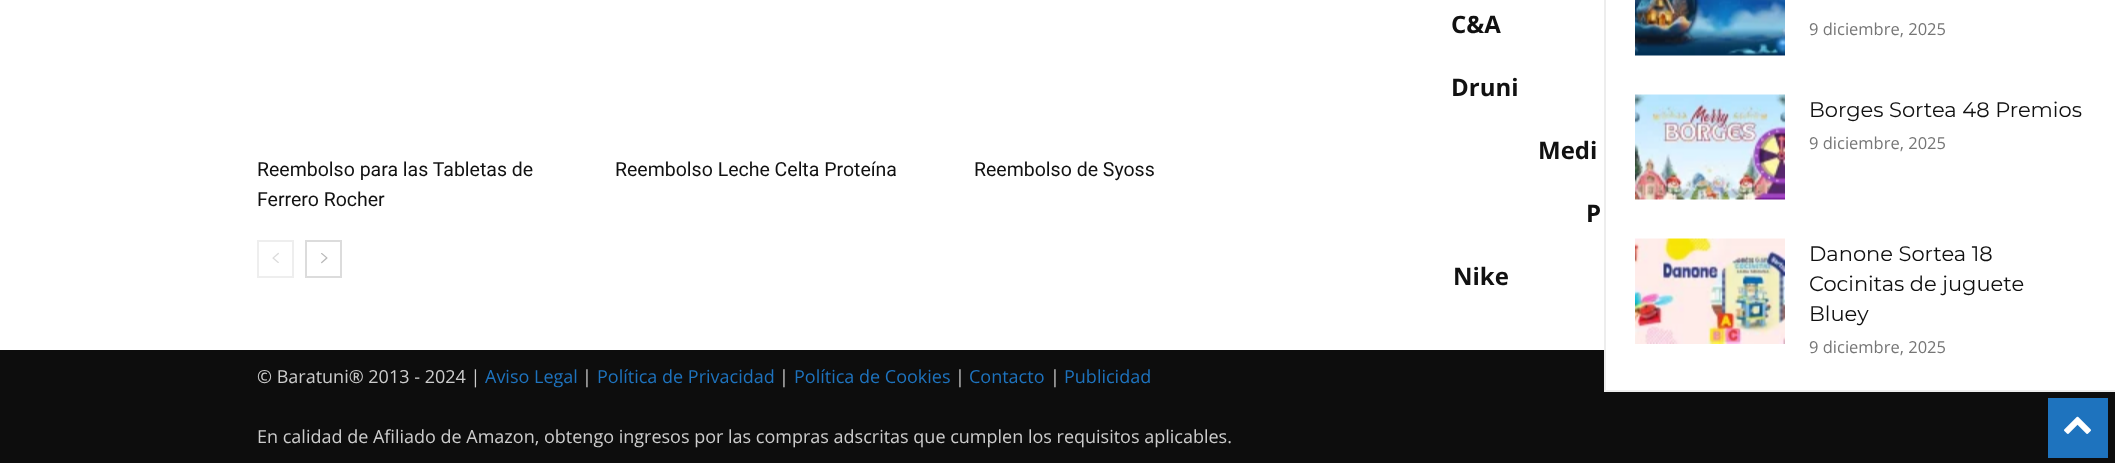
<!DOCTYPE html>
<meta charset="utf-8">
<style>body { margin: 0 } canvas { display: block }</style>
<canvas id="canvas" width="2115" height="463"></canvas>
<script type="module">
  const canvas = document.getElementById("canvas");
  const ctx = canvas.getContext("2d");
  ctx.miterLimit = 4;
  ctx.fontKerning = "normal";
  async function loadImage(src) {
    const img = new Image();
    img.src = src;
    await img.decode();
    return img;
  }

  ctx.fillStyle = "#ffffff";
  ctx.fillRect(0, 0, 2115, 463);
  ctx.font = "19.5px Roboto";
  ctx.fillStyle = "#111111";
  ctx.fillText("Reembolso para las Tabletas de", 257, 176);
  ctx.fillText("Ferrero Rocher", 257, 206);
  ctx.fillText("Reembolso Leche Celta Proteína", 615, 176);
  ctx.fillText("Reembolso de Syoss", 974, 176);
  ctx.strokeStyle = "#eeeeee";
  ctx.lineWidth = 2;
  ctx.strokeRect(258, 241, 35, 36);
  ctx.drawImage(await loadImage("img1.png"), 272, 252, 7, 11);
  ctx.strokeStyle = "#dcdcdc";
  ctx.strokeRect(306, 241, 35, 36);
  ctx.drawImage(await loadImage("img2.png"), 321, 253, 7, 11);
  ctx.font = "bold 24px Open Sans";
  ctx.fillText("C&A", 1451, 33);
  ctx.fillText("Druni", 1451, 96);
  ctx.fillText("Medi", 1538, 159);
  ctx.fillText("P", 1586, 222);
  ctx.fillText("Nike", 1453, 285);
  ctx.fillStyle = "#0d0d0d";
  ctx.fillRect(0, 350, 2115, 113);
  ctx.font = "18px Open Sans";
  ctx.fillStyle = "#cccccc";
  ctx.fillText("© Baratuni® 2013 - 2024 |", 257, 383);
  ctx.fillStyle = "#1e73be";
  ctx.fillText("Aviso Legal", 485, 383);
  ctx.fillStyle = "#cccccc";
  ctx.fillText("|", 582, 383);
  ctx.fillStyle = "#1e73be";
  ctx.fillText("Política de Privacidad", 597, 383);
  ctx.fillStyle = "#cccccc";
  ctx.fillText("|", 779, 383);
  ctx.fillStyle = "#1e73be";
  ctx.fillText("Política de Cookies", 794, 383);
  ctx.fillStyle = "#cccccc";
  ctx.fillText("|", 955, 383);
  ctx.fillStyle = "#1e73be";
  ctx.fillText("Contacto", 969, 383);
  ctx.fillStyle = "#cccccc";
  ctx.fillText("|", 1050, 383);
  ctx.fillStyle = "#1e73be";
  ctx.fillText("Publicidad", 1064, 383);
  ctx.fillStyle = "#cccccc";
  ctx.fillText("En calidad de Afiliado de Amazon, obtengo ingresos por las compras adscritas que cumplen los requisitos aplicables.", 257, 443);
  ctx.fillStyle = "#ffffff";
  ctx.fillRect(1606, 350, 509, 40);
  ctx.fillStyle = "#ededed";
  ctx.fillRect(1604, 390, 511, 2);
  ctx.fillRect(1604, 0, 2, 392);
  ctx.drawImage(await loadImage("img3.png"), 1635, 0, 150, 56);
  ctx.font = "16.5px Open Sans";
  ctx.fillStyle = "#767676";
  ctx.fillText("9 diciembre, 2025", 1809, 35);
  ctx.drawImage(await loadImage("img4.png"), 1635, 94, 150, 106);
  ctx.font = "100 21px Montserrat";
  ctx.fillStyle = "#111111";
  ctx.fillText("Borges Sortea 48 Premios", 1809, 117);
  ctx.font = "16.5px Open Sans";
  ctx.fillStyle = "#767676";
  ctx.fillText("9 diciembre, 2025", 1809, 149);
  ctx.drawImage(await loadImage("img5.png"), 1635, 238, 150, 106);
  ctx.font = "100 21px Montserrat";
  ctx.fillStyle = "#111111";
  ctx.fillText("Danone Sortea 18", 1809, 261);
  ctx.fillText("Cocinitas de juguete", 1809, 291);
  ctx.fillText("Bluey", 1809, 321);
  ctx.font = "16.5px Open Sans";
  ctx.fillStyle = "#767676";
  ctx.fillText("9 diciembre, 2025", 1809, 353);
  ctx.fillStyle = "#1e73be";
  ctx.fillRect(2048, 398, 60, 60);
  ctx.drawImage(await loadImage("img6.png"), 2064, 416, 27, 18);
</script>
